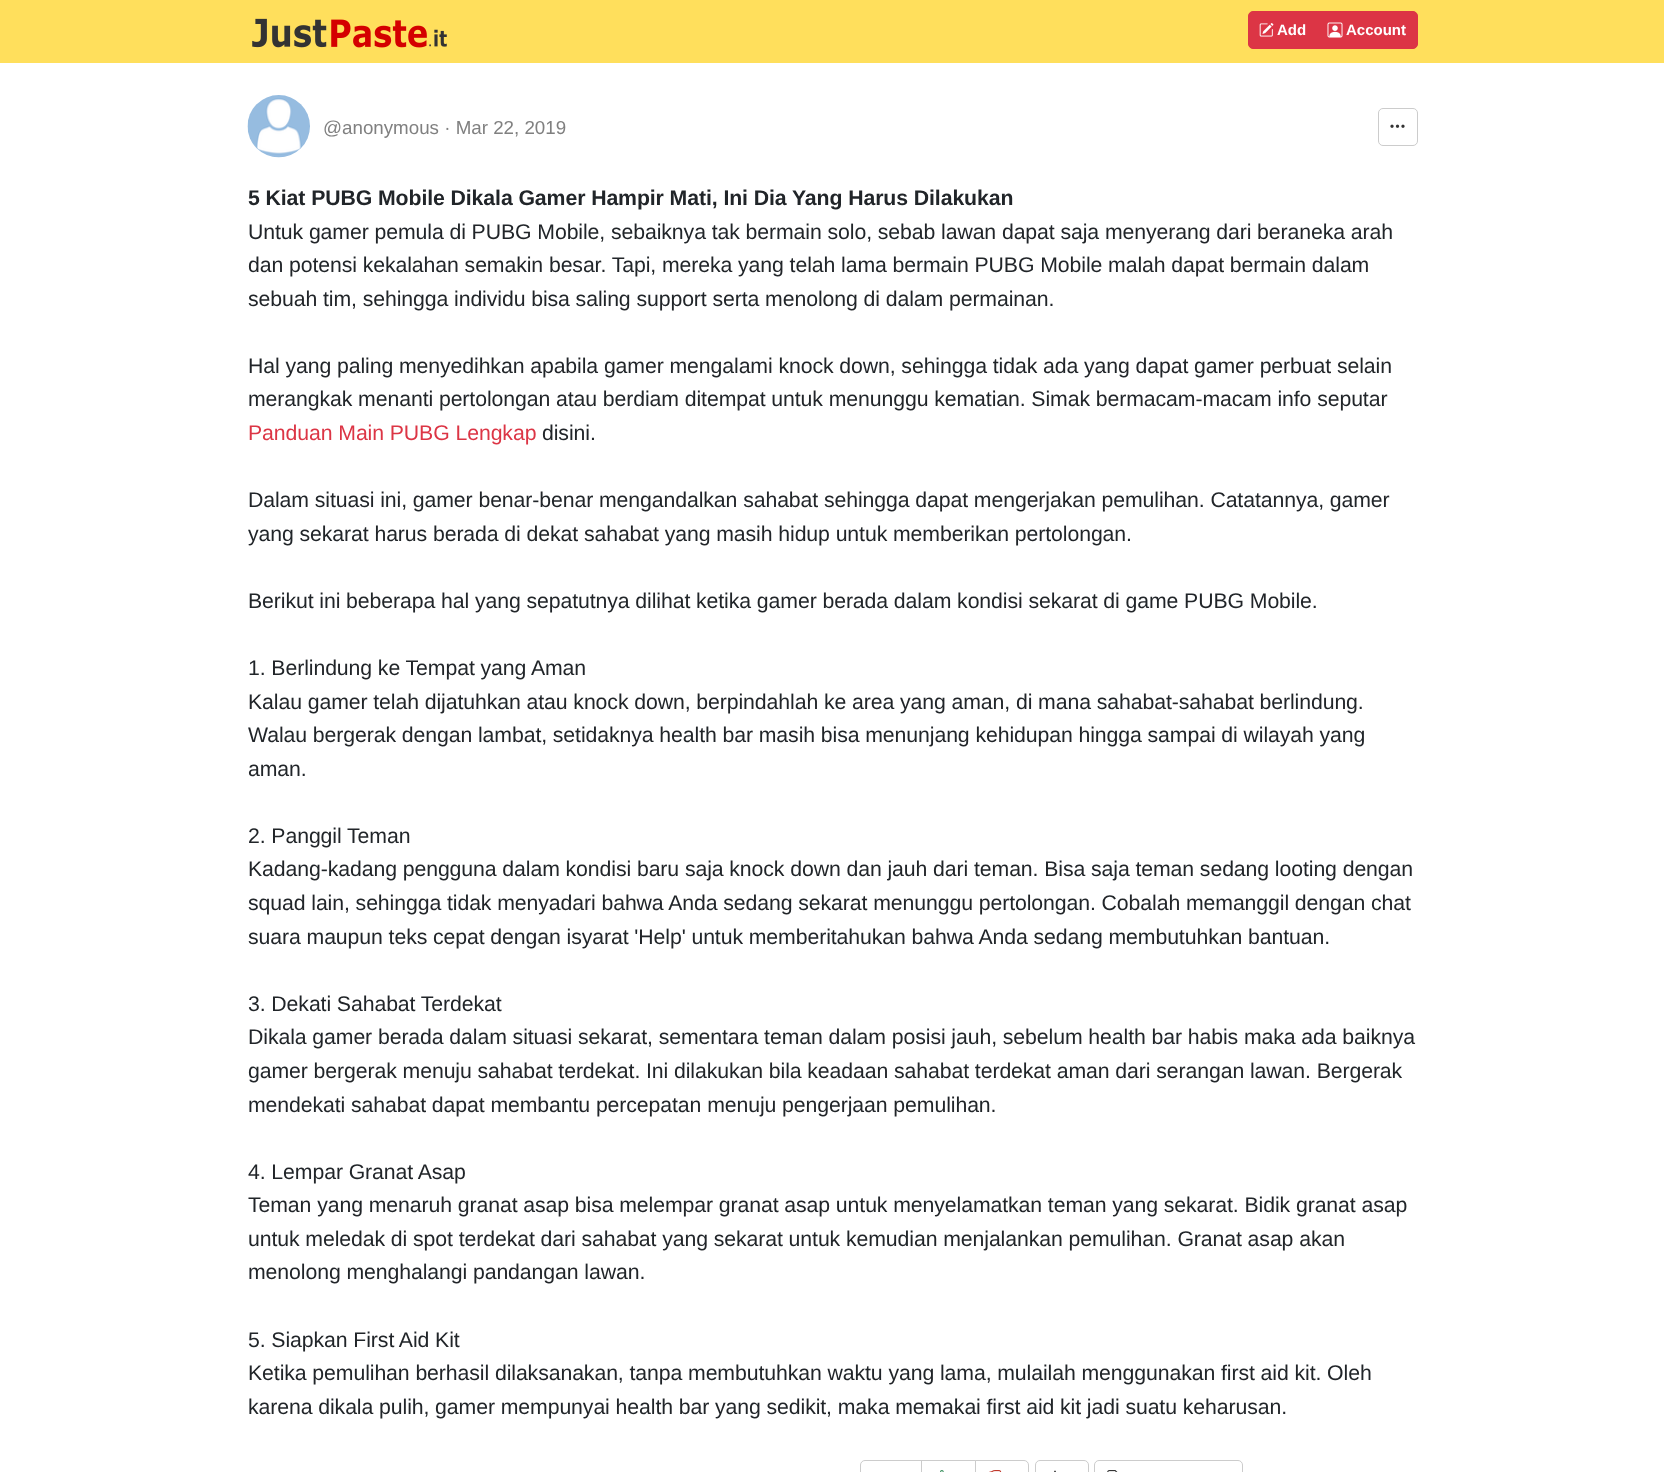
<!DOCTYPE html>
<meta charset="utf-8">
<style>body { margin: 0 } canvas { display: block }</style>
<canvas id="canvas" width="1664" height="1472"></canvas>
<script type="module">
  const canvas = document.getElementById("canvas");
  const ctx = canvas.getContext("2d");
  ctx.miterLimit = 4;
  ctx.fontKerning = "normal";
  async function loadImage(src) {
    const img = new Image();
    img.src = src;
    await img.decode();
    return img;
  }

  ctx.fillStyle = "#ffffff";
  ctx.fillRect(0, 0, 1664, 1472);
  ctx.fillStyle = "#ffdf5c";
  ctx.fillRect(0, 0, 1664, 63);
  ctx.drawImage(await loadImage("img1.png"), 252, 18, 195, 30);
  ctx.fillStyle = "#dc3545";
  ctx.beginPath();
  ctx.roundRect(1248.5, 11.5, 69, 37, [4.5, 0, 0, 4.5]);
  ctx.fill();
  ctx.strokeStyle = "#dc3545";
  ctx.stroke();
  ctx.drawImage(await loadImage("img2.png"), 1259, 23, 15, 14);
  ctx.font = "bold 15px Liberation Sans";
  ctx.fillStyle = "#ffffff";
  ctx.fillText("Add", 1277, 35);
  ctx.fillStyle = "#dc3545";
  ctx.beginPath();
  ctx.roundRect(1316.5, 11.5, 101, 37, [0, 4.5, 4.5, 0]);
  ctx.fill();
  ctx.stroke();
  ctx.drawImage(await loadImage("img3.png"), 1327, 22, 16, 16);
  ctx.fillStyle = "#ffffff";
  ctx.fillText("Account", 1346, 35);
  ctx.drawImage(await loadImage("img4.png"), 247, 95, 63, 63);
  ctx.font = "18.75px Liberation Sans";
  ctx.fillStyle = "#808080";
  ctx.fillText("@anonymous · Mar 22, 2019", 323, 134);
  ctx.beginPath();
  ctx.roundRect(1378.5, 108.5, 39, 37, 4.5);
  ctx.strokeStyle = "#cccccc";
  ctx.stroke();
  ctx.drawImage(await loadImage("img5.png"), 1390, 124, 15, 4);
  ctx.letterSpacing = "-0.09px";
  ctx.font = "bold 21.25px Liberation Sans";
  ctx.fillStyle = "#212529";
  ctx.fillText("5 Kiat PUBG Mobile Dikala Gamer Hampir Mati, Ini Dia Yang Harus Dilakukan", 248, 205);
  ctx.font = "21.25px Liberation Sans";
  ctx.fillText("Untuk gamer pemula di PUBG Mobile, sebaiknya tak bermain solo, sebab lawan dapat saja menyerang dari beraneka arah", 248, 239);
  ctx.fillText("dan potensi kekalahan semakin besar. Tapi, mereka yang telah lama bermain PUBG Mobile malah dapat bermain dalam", 248, 272);
  ctx.fillText("sebuah tim, sehingga individu bisa saling support serta menolong di dalam permainan.", 248, 306);
  ctx.fillText("Hal yang paling menyedihkan apabila gamer mengalami knock down, sehingga tidak ada yang dapat gamer perbuat selain", 248, 373);
  ctx.fillText("merangkak menanti pertolongan atau berdiam ditempat untuk menunggu kematian. Simak bermacam-macam info seputar", 248, 406);
  ctx.fillStyle = "#dc3545";
  ctx.fillText("Panduan Main PUBG Lengkap", 248, 440);
  ctx.fillStyle = "#212529";
  ctx.fillText("disini.", 542, 440);
  ctx.fillText("Dalam situasi ini, gamer benar-benar mengandalkan sahabat sehingga dapat mengerjakan pemulihan. Catatannya, gamer", 248, 507);
  ctx.fillText("yang sekarat harus berada di dekat sahabat yang masih hidup untuk memberikan pertolongan.", 248, 541);
  ctx.fillText("Berikut ini beberapa hal yang sepatutnya dilihat ketika gamer berada dalam kondisi sekarat di game PUBG Mobile.", 248, 608);
  ctx.fillText("1. Berlindung ke Tempat yang Aman", 248, 675);
  ctx.fillText("Kalau gamer telah dijatuhkan atau knock down, berpindahlah ke area yang aman, di mana sahabat-sahabat berlindung.", 248, 709);
  ctx.fillText("Walau bergerak dengan lambat, setidaknya health bar masih bisa menunjang kehidupan hingga sampai di wilayah yang", 248, 742);
  ctx.fillText("aman.", 248, 776);
  ctx.fillText("2. Panggil Teman", 248, 843);
  ctx.fillText("Kadang-kadang pengguna dalam kondisi baru saja knock down dan jauh dari teman. Bisa saja teman sedang looting dengan", 248, 876);
  ctx.fillText("squad lain, sehingga tidak menyadari bahwa Anda sedang sekarat menunggu pertolongan. Cobalah memanggil dengan chat", 248, 910);
  ctx.fillText("suara maupun teks cepat dengan isyarat 'Help' untuk memberitahukan bahwa Anda sedang membutuhkan bantuan.", 248, 944);
  ctx.fillText("3. Dekati Sahabat Terdekat", 248, 1011);
  ctx.fillText("Dikala gamer berada dalam situasi sekarat, sementara teman dalam posisi jauh, sebelum health bar habis maka ada baiknya", 248, 1044);
  ctx.fillText("gamer bergerak menuju sahabat terdekat. Ini dilakukan bila keadaan sahabat terdekat aman dari serangan lawan. Bergerak", 248, 1078);
  ctx.fillText("mendekati sahabat dapat membantu percepatan menuju pengerjaan pemulihan.", 248, 1112);
  ctx.fillText("4. Lempar Granat Asap", 248, 1179);
  ctx.fillText("Teman yang menaruh granat asap bisa melempar granat asap untuk menyelamatkan teman yang sekarat. Bidik granat asap", 248, 1212);
  ctx.fillText("untuk meledak di spot terdekat dari sahabat yang sekarat untuk kemudian menjalankan pemulihan. Granat asap akan", 248, 1246);
  ctx.fillText("menolong menghalangi pandangan lawan.", 248, 1279);
  ctx.fillText("5. Siapkan First Aid Kit", 248, 1347);
  ctx.fillText("Ketika pemulihan berhasil dilaksanakan, tanpa membutuhkan waktu yang lama, mulailah menggunakan first aid kit. Oleh", 248, 1380);
  ctx.fillText("karena dikala pulih, gamer mempunyai health bar yang sedikit, maka memakai first aid kit jadi suatu keharusan.", 248, 1414);
  ctx.beginPath();
  ctx.moveTo(865, 1460.5);
  ctx.lineTo(922.5, 1460.5);
  ctx.lineTo(922.5, 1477.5);
  ctx.lineTo(865, 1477.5);
  ctx.bezierCurveTo(862.5, 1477.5, 860.5, 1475.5, 860.5, 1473);
  ctx.lineTo(860.5, 1465);
  ctx.bezierCurveTo(860.5, 1462.5, 862.5, 1460.5, 865, 1460.5);
  ctx.closePath();
  ctx.stroke();
  ctx.fillStyle = "#ffffff";
  ctx.fillRect(922, 1461, 1, 11);
  ctx.strokeRect(921.5, 1460.5, 54, 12);
  ctx.drawImage(await loadImage("img6.png"), 940, 1470, 4, 2);
  ctx.beginPath();
  ctx.moveTo(975.5, 1460.5);
  ctx.lineTo(1024, 1460.5);
  ctx.bezierCurveTo(1026.5, 1460.5, 1028.5, 1462.5, 1028.5, 1465);
  ctx.lineTo(1028.5, 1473);
  ctx.bezierCurveTo(1028.5, 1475.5, 1026.5, 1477.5, 1024, 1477.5);
  ctx.lineTo(975.5, 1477.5);
  ctx.closePath();
  ctx.fill();
  ctx.stroke();
  ctx.drawImage(await loadImage("img7.png"), 989, 1470, 13, 2);
  ctx.beginPath();
  ctx.roundRect(1035.5, 1460.5, 53, 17, 4.5);
  ctx.stroke();
  ctx.drawImage(await loadImage("img8.png"), 1054, 1470, 2, 2);
  ctx.beginPath();
  ctx.roundRect(1094.5, 1460.5, 148, 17, 4.5);
  ctx.stroke();
  ctx.drawImage(await loadImage("img9.png"), 1107, 1470, 11, 2);
</script>
